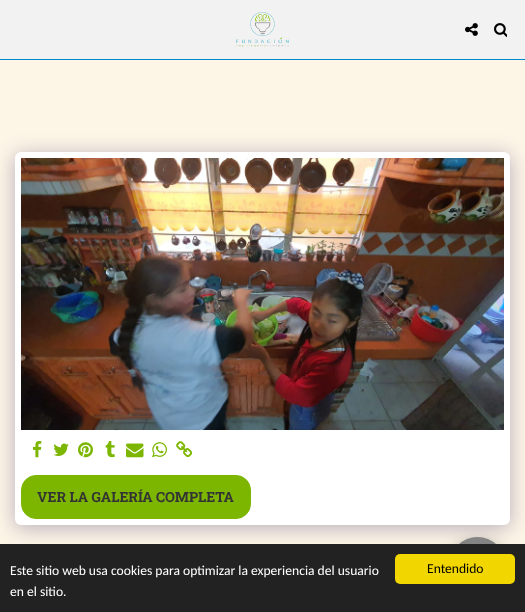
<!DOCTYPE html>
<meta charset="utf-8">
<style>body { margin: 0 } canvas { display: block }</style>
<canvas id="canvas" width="525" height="612"></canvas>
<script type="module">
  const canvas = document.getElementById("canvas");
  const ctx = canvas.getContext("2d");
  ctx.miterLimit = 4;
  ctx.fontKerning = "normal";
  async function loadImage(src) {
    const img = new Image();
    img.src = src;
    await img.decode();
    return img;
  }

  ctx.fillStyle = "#fdf5e6";
  ctx.fillRect(0, 0, 525, 612);
  ctx.fillStyle = "#f2f2f2";
  ctx.fillRect(0, 0, 525, 59);
  ctx.fillStyle = "#0088cc";
  ctx.fillRect(0, 59, 525, 1);
  ctx.drawImage(await loadImage("img1.png"), 236, 12, 53, 35);
  ctx.drawImage(await loadImage("img2.png"), 465, 23, 13, 13);
  ctx.drawImage(await loadImage("img3.png"), 494, 23, 13, 14);
  ctx.fillStyle = "rgba(77, 63, 122, 0.4)";
  ctx.filter = "blur(10px)";
  ctx.beginPath();
  ctx.roundRect(15, 155, 495, 373, 6);
  ctx.fill();
  ctx.filter = "none";
  ctx.fillStyle = "#ffffff";
  ctx.beginPath();
  ctx.roundRect(15, 152, 495, 373, 6);
  ctx.fill();
  ctx.drawImage(await loadImage("img4.png"), 21, 158, 483, 272);
  ctx.drawImage(await loadImage("img5.png"), 32, 441, 10, 17);
  ctx.drawImage(await loadImage("img6.png"), 53, 443, 16, 13);
  ctx.drawImage(await loadImage("img7.png"), 78, 442, 15, 16);
  ctx.drawImage(await loadImage("img8.png"), 105, 441, 10, 17);
  ctx.drawImage(await loadImage("img9.png"), 126, 443, 18, 15);
  ctx.drawImage(await loadImage("img10.png"), 152, 442, 15, 16);
  ctx.drawImage(await loadImage("img11.png"), 176, 441, 16, 17);
  ctx.fillStyle = "#7cb600";
  ctx.beginPath();
  ctx.roundRect(21.5, 475.5, 229, 43, 14.5);
  ctx.fill();
  ctx.strokeStyle = "#7cb600";
  ctx.stroke();
  ctx.font = "bold 14px Roboto Slab";
  ctx.fillStyle = "#333333";
  ctx.fillText("VER LA GALERÍA COMPLETA", 37, 502);
  ctx.fillStyle = "rgba(0, 0, 0, 0.35)";
  ctx.filter = "blur(7.5px)";
  ctx.beginPath();
  ctx.roundRect(450, 542, 55, 55, 27.5);
  ctx.fill();
  ctx.filter = "none";
  ctx.fillStyle = "#848484";
  ctx.beginPath();
  ctx.arc(477.5, 564.5, 27.5, 0, Math.PI * 2);
  ctx.fill();
  ctx.fillStyle = "#222222";
  ctx.fillRect(0, 544, 525, 68);
  ctx.font = "13.6px Carlito";
  ctx.fillStyle = "#ffffff";
  ctx.fillText("Este sitio web usa cookies para optimizar la experiencia del usuario", 10, 575);
  ctx.fillText("en el sitio.", 10, 596);
  ctx.fillStyle = "#f1d600";
  ctx.beginPath();
  ctx.roundRect(395, 554, 120, 30, 5);
  ctx.fill();
  ctx.fillStyle = "#000000";
  ctx.fillText("Entendido", 427, 573);
</script>
